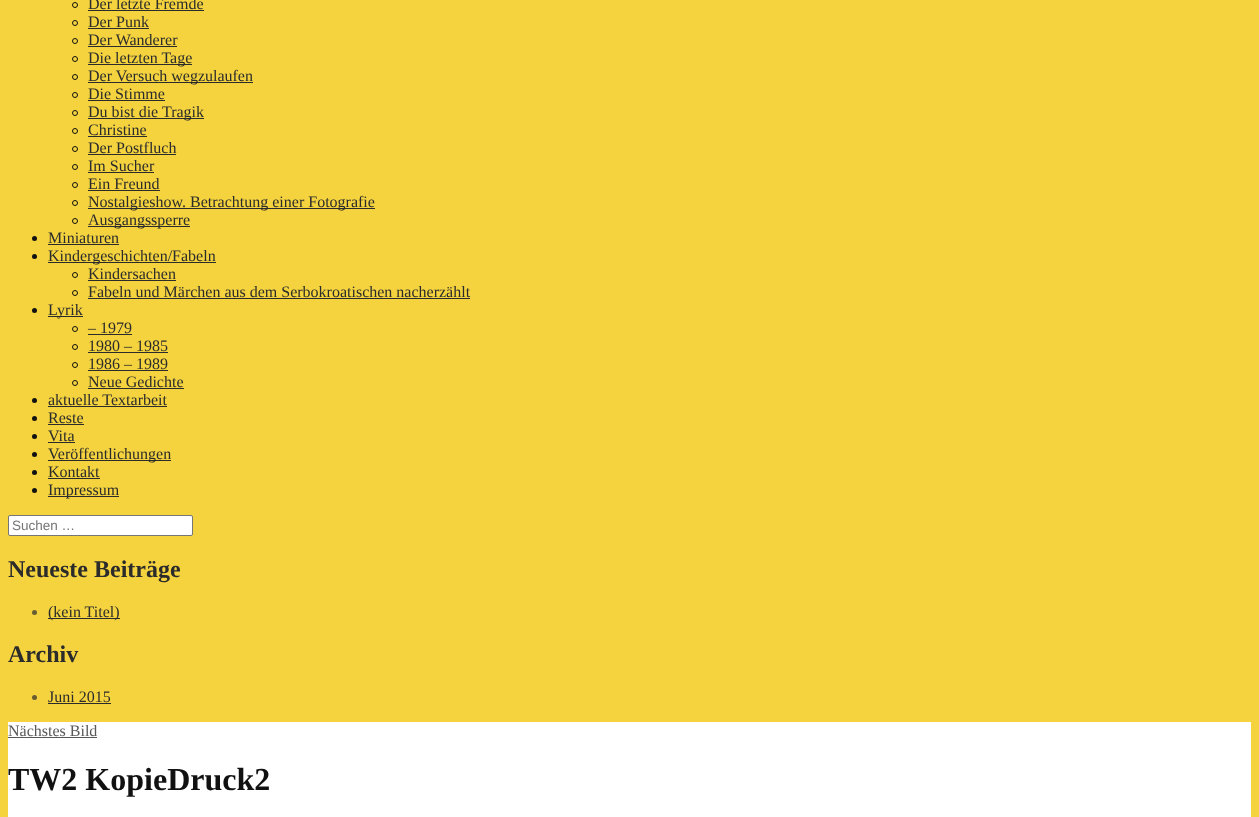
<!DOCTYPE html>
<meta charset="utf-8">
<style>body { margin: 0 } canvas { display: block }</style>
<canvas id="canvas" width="1259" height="817"></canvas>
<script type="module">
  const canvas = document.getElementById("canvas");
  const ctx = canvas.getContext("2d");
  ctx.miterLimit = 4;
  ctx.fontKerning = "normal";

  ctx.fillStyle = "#f4d33f";
  ctx.fillRect(0, 0, 1259, 817);
  ctx.beginPath();
  ctx.arc(75, 5, 2.5, 0, Math.PI * 2);
  ctx.strokeStyle = "#111111";
  ctx.stroke();
  ctx.font = "16px Liberation Serif";
  ctx.fillStyle = "#2b2b2b";
  ctx.fillText("Der letzte Fremde", 88, 9);
  ctx.fillRect(88, 10, 116, 1);
  ctx.beginPath();
  ctx.arc(75, 23, 2.5, 0, Math.PI * 2);
  ctx.stroke();
  ctx.fillText("Der Punk", 88, 27);
  ctx.fillRect(88, 28, 61, 1);
  ctx.beginPath();
  ctx.arc(75, 41, 2.5, 0, Math.PI * 2);
  ctx.stroke();
  ctx.fillText("Der Wanderer", 88, 45);
  ctx.fillRect(88, 46, 89, 1);
  ctx.beginPath();
  ctx.arc(75, 59, 2.5, 0, Math.PI * 2);
  ctx.stroke();
  ctx.fillRect(88, 64, 104, 1);
  ctx.fillText("Die letzten Tage", 88, 63);
  ctx.beginPath();
  ctx.arc(75, 77, 2.5, 0, Math.PI * 2);
  ctx.stroke();
  ctx.fillRect(88, 82, 165, 1);
  ctx.fillText("Der Versuch wegzulaufen", 88, 81);
  ctx.beginPath();
  ctx.arc(75, 95, 2.5, 0, Math.PI * 2);
  ctx.stroke();
  ctx.fillText("Die Stimme", 88, 99);
  ctx.fillRect(88, 100, 77, 1);
  ctx.beginPath();
  ctx.arc(75, 113, 2.5, 0, Math.PI * 2);
  ctx.stroke();
  ctx.fillRect(88, 118, 116, 1);
  ctx.fillText("Du bist die Tragik", 88, 117);
  ctx.beginPath();
  ctx.arc(75, 131, 2.5, 0, Math.PI * 2);
  ctx.stroke();
  ctx.fillText("Christine", 88, 135);
  ctx.fillRect(88, 136, 59, 1);
  ctx.beginPath();
  ctx.arc(75, 149, 2.5, 0, Math.PI * 2);
  ctx.stroke();
  ctx.fillText("Der Postfluch", 88, 153);
  ctx.fillRect(88, 154, 88, 1);
  ctx.beginPath();
  ctx.arc(75, 167, 2.5, 0, Math.PI * 2);
  ctx.stroke();
  ctx.fillText("Im Sucher", 88, 171);
  ctx.fillRect(88, 172, 66, 1);
  ctx.beginPath();
  ctx.arc(75, 185, 2.5, 0, Math.PI * 2);
  ctx.stroke();
  ctx.fillText("Ein Freund", 88, 189);
  ctx.fillRect(88, 190, 72, 1);
  ctx.beginPath();
  ctx.arc(75, 203, 2.5, 0, Math.PI * 2);
  ctx.stroke();
  ctx.fillRect(88, 208, 287, 1);
  ctx.fillText("Nostalgieshow. Betrachtung einer Fotografie", 88, 207);
  ctx.beginPath();
  ctx.arc(75, 221, 2.5, 0, Math.PI * 2);
  ctx.stroke();
  ctx.fillRect(88, 226, 102, 1);
  ctx.fillText("Ausgangssperre", 88, 225);
  ctx.fillStyle = "#111111";
  ctx.beginPath();
  ctx.arc(34.5, 238.5, 2.5, 0, Math.PI * 2);
  ctx.fill();
  ctx.fillStyle = "#2b2b2b";
  ctx.fillText("Miniaturen", 48, 243);
  ctx.fillRect(48, 244, 71, 1);
  ctx.fillStyle = "#111111";
  ctx.beginPath();
  ctx.arc(34.5, 256.5, 2.5, 0, Math.PI * 2);
  ctx.fill();
  ctx.fillStyle = "#2b2b2b";
  ctx.fillRect(48, 262, 168, 1);
  ctx.fillText("Kindergeschichten/Fabeln", 48, 261);
  ctx.beginPath();
  ctx.arc(75, 275, 2.5, 0, Math.PI * 2);
  ctx.stroke();
  ctx.fillText("Kindersachen", 88, 279);
  ctx.fillRect(88, 280, 88, 1);
  ctx.beginPath();
  ctx.arc(75, 293, 2.5, 0, Math.PI * 2);
  ctx.stroke();
  ctx.fillText("Fabeln und Märchen aus dem Serbokroatischen nacherzählt", 88, 297);
  ctx.fillRect(88, 298, 382, 1);
  ctx.fillStyle = "#111111";
  ctx.beginPath();
  ctx.arc(34.5, 310.5, 2.5, 0, Math.PI * 2);
  ctx.fill();
  ctx.fillStyle = "#2b2b2b";
  ctx.fillRect(48, 316, 35, 1);
  ctx.fillText("Lyrik", 48, 315);
  ctx.beginPath();
  ctx.arc(75, 329, 2.5, 0, Math.PI * 2);
  ctx.stroke();
  ctx.fillText("– 1979", 88, 333);
  ctx.fillRect(88, 334, 44, 1);
  ctx.beginPath();
  ctx.arc(75, 347, 2.5, 0, Math.PI * 2);
  ctx.stroke();
  ctx.fillText("1980 – 1985", 88, 351);
  ctx.fillRect(88, 352, 80, 1);
  ctx.beginPath();
  ctx.arc(75, 365, 2.5, 0, Math.PI * 2);
  ctx.stroke();
  ctx.fillText("1986 – 1989", 88, 369);
  ctx.fillRect(88, 370, 80, 1);
  ctx.beginPath();
  ctx.arc(75, 383, 2.5, 0, Math.PI * 2);
  ctx.stroke();
  ctx.fillText("Neue Gedichte", 88, 387);
  ctx.fillRect(88, 388, 96, 1);
  ctx.fillStyle = "#111111";
  ctx.beginPath();
  ctx.arc(34.5, 400.5, 2.5, 0, Math.PI * 2);
  ctx.fill();
  ctx.fillStyle = "#2b2b2b";
  ctx.fillText("aktuelle Textarbeit", 48, 405);
  ctx.fillRect(48, 406, 119, 1);
  ctx.fillStyle = "#111111";
  ctx.beginPath();
  ctx.arc(34.5, 418.5, 2.5, 0, Math.PI * 2);
  ctx.fill();
  ctx.fillStyle = "#2b2b2b";
  ctx.fillText("Reste", 48, 423);
  ctx.fillRect(48, 424, 36, 1);
  ctx.fillStyle = "#111111";
  ctx.beginPath();
  ctx.arc(34.5, 436.5, 2.5, 0, Math.PI * 2);
  ctx.fill();
  ctx.fillStyle = "#2b2b2b";
  ctx.fillText("Vita", 48, 441);
  ctx.fillRect(48, 442, 27, 1);
  ctx.fillStyle = "#111111";
  ctx.beginPath();
  ctx.arc(34.5, 454.5, 2.5, 0, Math.PI * 2);
  ctx.fill();
  ctx.fillStyle = "#2b2b2b";
  ctx.fillRect(48, 460, 123, 1);
  ctx.fillText("Veröffentlichungen", 48, 459);
  ctx.fillStyle = "#111111";
  ctx.beginPath();
  ctx.arc(34.5, 472.5, 2.5, 0, Math.PI * 2);
  ctx.fill();
  ctx.fillStyle = "#2b2b2b";
  ctx.fillText("Kontakt", 48, 477);
  ctx.fillRect(48, 478, 52, 1);
  ctx.fillStyle = "#111111";
  ctx.beginPath();
  ctx.arc(34.5, 490.5, 2.5, 0, Math.PI * 2);
  ctx.fill();
  ctx.fillStyle = "#2b2b2b";
  ctx.fillRect(48, 496, 71, 1);
  ctx.fillText("Impressum", 48, 495);
  ctx.fillStyle = "#ffffff";
  ctx.beginPath();
  ctx.roundRect(8.5, 515.5, 184, 20, 1.5);
  ctx.fill();
  ctx.strokeStyle = "#767676";
  ctx.stroke();
  ctx.font = "13.5px Liberation Sans";
  ctx.fillStyle = "#757575";
  ctx.fillText("Suchen …", 12, 530);
  ctx.font = "bold 24px Liberation Serif";
  ctx.fillStyle = "#2b2b2b";
  ctx.fillText("Neueste Beiträge", 8, 577);
  ctx.fillStyle = "#675d31";
  ctx.beginPath();
  ctx.arc(34.5, 612.5, 2.5, 0, Math.PI * 2);
  ctx.fill();
  ctx.fillStyle = "#2b2b2b";
  ctx.fillRect(48, 618, 72, 1);
  ctx.font = "16px Liberation Serif";
  ctx.fillText("(kein Titel)", 48, 617);
  ctx.font = "bold 24px Liberation Serif";
  ctx.fillText("Archiv", 8, 662);
  ctx.fillStyle = "#675d31";
  ctx.beginPath();
  ctx.arc(34.5, 697.5, 2.5, 0, Math.PI * 2);
  ctx.fill();
  ctx.font = "16px Liberation Serif";
  ctx.fillStyle = "#2b2b2b";
  ctx.fillText("Juni 2015", 48, 702);
  ctx.fillRect(48, 703, 63, 1);
  ctx.fillStyle = "#ffffff";
  ctx.fillRect(8, 722, 1243, 95);
  ctx.fillStyle = "#585858";
  ctx.fillText("Nächstes Bild", 8, 736);
  ctx.fillRect(8, 737, 89, 1);
  ctx.font = "bold 32px Liberation Serif";
  ctx.fillStyle = "#111111";
  ctx.fillText("TW2 KopieDruck2", 8, 790);
</script>
